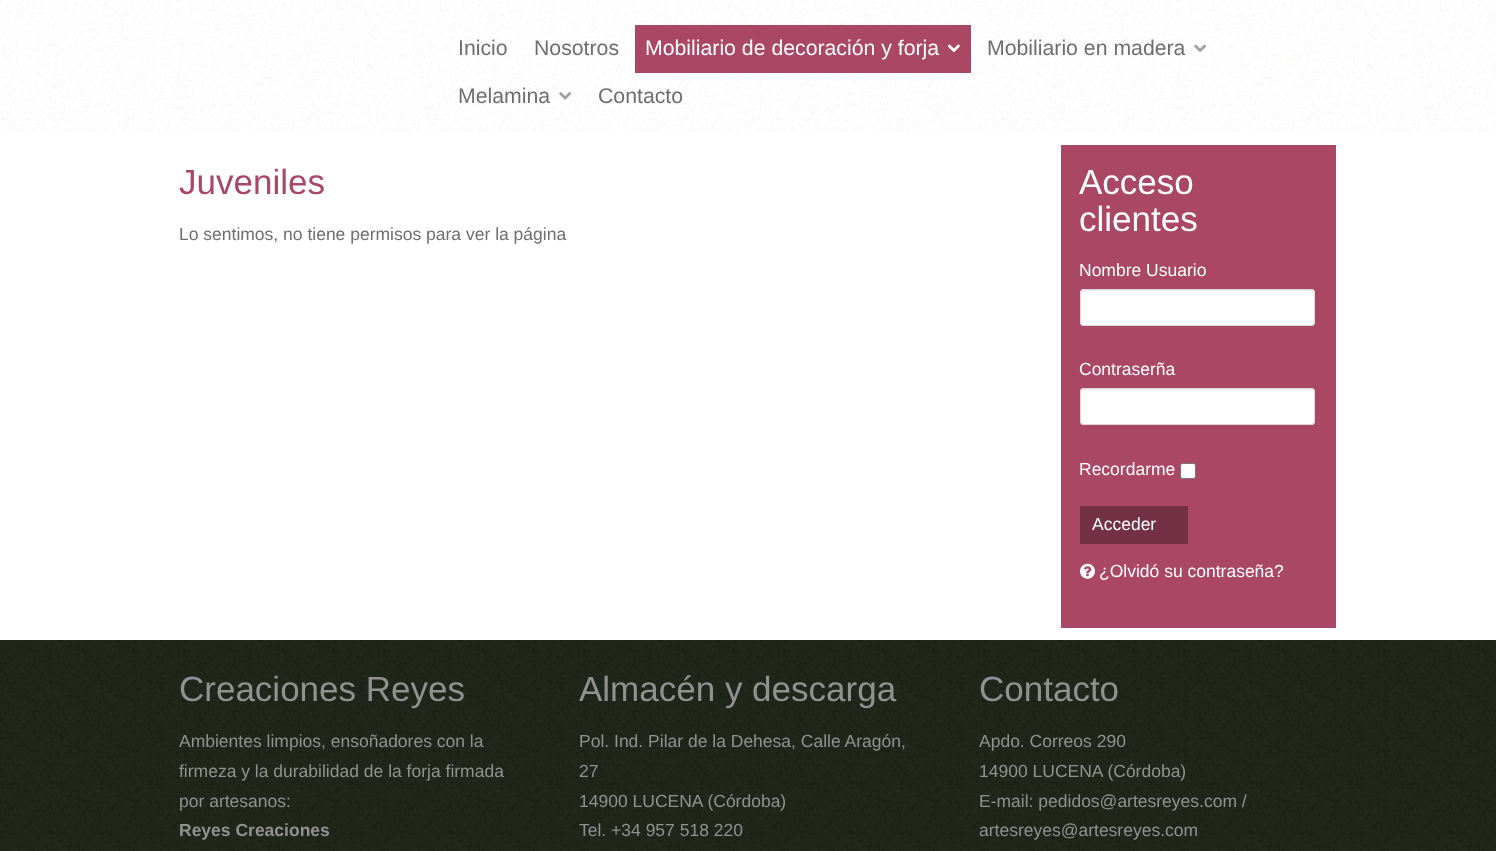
<!DOCTYPE html>
<meta charset="utf-8">
<style>body { margin: 0 } canvas { display: block }</style>
<canvas id="canvas" width="1496" height="851"></canvas>
<script type="module">
  const canvas = document.getElementById("canvas");
  const ctx = canvas.getContext("2d");
  ctx.miterLimit = 4;
  ctx.fontKerning = "normal";
  async function loadImage(src) {
    const img = new Image();
    img.src = src;
    await img.decode();
    return img;
  }

  ctx.fillStyle = "#ffffff";
  ctx.fillRect(0, 0, 1496, 851);
  ctx.drawImage(await loadImage("img1.png"), 0, 0, 1496, 132);
  ctx.font = "21.25px Liberation Sans";
  ctx.fillStyle = "#6e6e6e";
  ctx.fillText("Inicio", 458, 55);
  ctx.fillText("Nosotros", 534, 55);
  ctx.fillStyle = "#aa4765";
  ctx.fillRect(635, 25, 336, 48);
  ctx.fillStyle = "#ffffff";
  ctx.fillText("Mobiliario de decoración y forja", 645, 55);
  ctx.drawImage(await loadImage("img2.png"), 947, 44, 13, 9);
  ctx.fillStyle = "#6e6e6e";
  ctx.fillText("Mobiliario en madera", 987, 55);
  ctx.drawImage(await loadImage("img3.png"), 1194, 44, 12, 8);
  ctx.fillText("Melamina", 458, 103);
  ctx.drawImage(await loadImage("img4.png"), 559, 92, 13, 8);
  ctx.fillText("Contacto", 598, 103);
  ctx.font = "35px Liberation Sans";
  ctx.fillStyle = "#aa4765";
  ctx.fillText("Juveniles", 179, 194);
  ctx.font = "17.5px Liberation Sans";
  ctx.fillStyle = "#6e6e6e";
  ctx.fillText("Lo sentimos, no tiene permisos para ver la página", 179, 240);
  ctx.fillStyle = "#aa4765";
  ctx.fillRect(1061, 145, 275, 483);
  ctx.font = "35px Liberation Sans";
  ctx.fillStyle = "#ffffff";
  ctx.fillText("Acceso", 1079, 194);
  ctx.fillText("clientes", 1079, 231);
  ctx.font = "17.5px Liberation Sans";
  ctx.fillText("Nombre Usuario", 1079, 276);
  ctx.beginPath();
  ctx.roundRect(1080, 289, 235, 37, 4);
  ctx.fill();
  ctx.fillStyle = "#ececec";
  ctx.beginPath();
  ctx.moveTo(1084, 291);
  ctx.lineTo(1311, 291);
  ctx.bezierCurveTo(1313, 291, 1314, 292, 1314, 294);
  ctx.bezierCurveTo(1314, 292, 1314, 290, 1312, 290);
  ctx.lineTo(1084, 290);
  ctx.bezierCurveTo(1081, 290, 1081, 292, 1081, 294);
  ctx.bezierCurveTo(1081, 292, 1082, 291, 1084, 291);
  ctx.closePath();
  ctx.fill();
  ctx.beginPath();
  ctx.roundRect(1080.5, 289.5, 234, 36, 3.5);
  ctx.strokeStyle = "#d9d9d9";
  ctx.stroke();
  ctx.fillStyle = "#ffffff";
  ctx.fillText("Contraserña", 1079, 375);
  ctx.beginPath();
  ctx.roundRect(1080, 388, 235, 37, 4);
  ctx.fill();
  ctx.fillStyle = "#ececec";
  ctx.beginPath();
  ctx.moveTo(1084, 390);
  ctx.lineTo(1311, 390);
  ctx.bezierCurveTo(1313, 390, 1314, 391, 1314, 392);
  ctx.bezierCurveTo(1314, 390, 1313, 389, 1312, 389);
  ctx.lineTo(1084, 389);
  ctx.bezierCurveTo(1082, 389, 1081, 390, 1081, 392);
  ctx.bezierCurveTo(1081, 391, 1082, 390, 1084, 390);
  ctx.closePath();
  ctx.fill();
  ctx.beginPath();
  ctx.roundRect(1080.5, 388.5, 234, 36, 3.5);
  ctx.stroke();
  ctx.fillStyle = "#ffffff";
  ctx.fillText("Recordarme", 1079, 475);
  ctx.beginPath();
  ctx.roundRect(1180.5, 463.5, 15, 15, 2);
  ctx.fill();
  ctx.strokeStyle = "#767676";
  ctx.stroke();
  ctx.fillStyle = "#743045";
  ctx.fillRect(1080, 506, 108, 38);
  ctx.fillStyle = "#ffffff";
  ctx.fillText("Acceder", 1092, 530);
  ctx.drawImage(await loadImage("img5.png"), 1080, 563, 15, 16);
  ctx.fillText("¿Olvidó su contraseña?", 1099, 577);
  ctx.drawImage(await loadImage("img6.png"), 0, 640, 1496, 211);
  ctx.font = "35px Liberation Sans";
  ctx.fillStyle = "#919290";
  ctx.fillText("Creaciones Reyes", 179, 701);
  ctx.font = "17.5px Liberation Sans";
  ctx.fillText("Ambientes limpios, ensoñadores con la", 179, 747);
  ctx.fillText("firmeza y la durabilidad de la forja firmada", 179, 777);
  ctx.fillText("por artesanos:", 179, 807);
  ctx.font = "bold 17.5px Liberation Sans";
  ctx.fillText("Reyes Creaciones", 179, 836);
  ctx.font = "35px Liberation Sans";
  ctx.fillText("Almacén y descarga", 579, 701);
  ctx.font = "17.5px Liberation Sans";
  ctx.fillText("Pol. Ind. Pilar de la Dehesa, Calle Aragón,", 579, 747);
  ctx.fillText("27", 579, 777);
  ctx.fillText("14900 LUCENA (Córdoba)", 579, 807);
  ctx.fillText("Tel. +34 957 518 220", 579, 836);
  ctx.font = "35px Liberation Sans";
  ctx.fillText("Contacto", 979, 701);
  ctx.font = "17.5px Liberation Sans";
  ctx.fillText("Apdo. Correos 290", 979, 747);
  ctx.fillText("14900 LUCENA (Córdoba)", 979, 777);
  ctx.fillText("E-mail: pedidos@artesreyes.com /", 979, 807);
  ctx.fillText("artesreyes@artesreyes.com", 979, 836);
</script>
